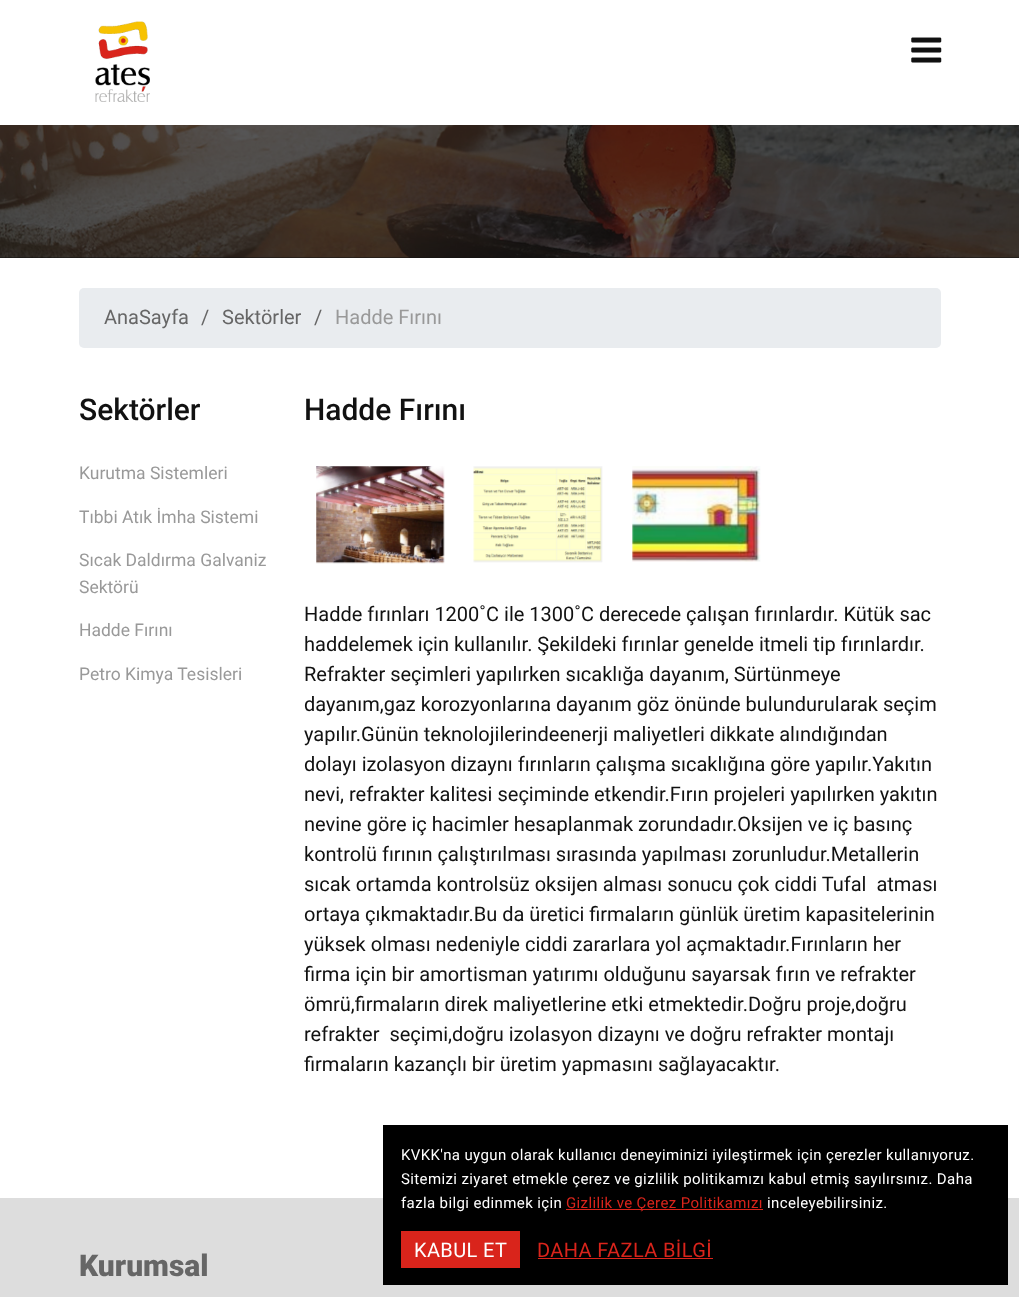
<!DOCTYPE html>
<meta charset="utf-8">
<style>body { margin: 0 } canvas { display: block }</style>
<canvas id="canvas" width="1019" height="1297"></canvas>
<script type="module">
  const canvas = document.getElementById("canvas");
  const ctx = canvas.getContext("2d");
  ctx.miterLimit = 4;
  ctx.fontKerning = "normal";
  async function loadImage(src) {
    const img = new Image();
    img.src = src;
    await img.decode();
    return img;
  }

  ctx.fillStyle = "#ffffff";
  ctx.fillRect(0, 0, 1019, 1297);
  ctx.drawImage(await loadImage("img1.png"), 95, 21, 55, 81);
  ctx.drawImage(await loadImage("img2.png"), 911, 37, 31, 26);
  ctx.fillStyle = "#111111";
  ctx.fillRect(0, 125, 1019, 133);
  ctx.drawImage(await loadImage("img3.png"), 0, 125, 1019, 133);
  ctx.fillStyle = "#e9ecef";
  ctx.beginPath();
  ctx.roundRect(79, 288, 862, 60, 5);
  ctx.fill();
  ctx.font = "20px Roboto";
  ctx.fillStyle = "#666666";
  ctx.fillText("AnaSayfa", 104, 324);
  ctx.fillText("/", 201, 324);
  ctx.fillText("Sektörler", 222, 324);
  ctx.fillText("/", 314, 324);
  ctx.fillStyle = "#999999";
  ctx.fillText("Hadde Fırını", 335, 324);
  ctx.font = "500 30px Roboto";
  ctx.fillStyle = "#111111";
  ctx.fillText("Sektörler", 79, 420);
  ctx.font = "17.5px Roboto";
  ctx.fillStyle = "#999999";
  ctx.fillText("Kurutma Sistemleri", 79, 479);
  ctx.fillText("Tıbbi Atık İmha Sistemi", 79, 523);
  ctx.fillText("Sıcak Daldırma Galvaniz", 79, 566);
  ctx.fillText("Sektörü", 79, 593);
  ctx.fillText("Hadde Fırını", 79, 636);
  ctx.fillText("Petro Kimya Tesisleri", 79, 680);
  ctx.font = "500 30px Roboto";
  ctx.fillStyle = "#111111";
  ctx.fillText("Hadde Fırını", 304, 420);
  ctx.drawImage(await loadImage("img4.png"), 316, 466, 129, 98);
  ctx.drawImage(await loadImage("img5.png"), 473, 466, 130, 97);
  ctx.drawImage(await loadImage("img6.png"), 632, 466, 129, 96);
  ctx.font = "20px Roboto";
  ctx.fillText("Hadde fırınları 1200˚C ile 1300˚C derecede çalışan fırınlardır. Kütük sac", 304, 621);
  ctx.fillText("haddelemek için kullanılır. Şekildeki fırınlar genelde itmeli tip fırınlardır.", 304, 651);
  ctx.fillText("Refrakter seçimleri yapılırken sıcaklığa dayanım, Sürtünmeye", 304, 681);
  ctx.fillText("dayanım,gaz korozyonlarına dayanım göz önünde bulundurularak seçim", 304, 711);
  ctx.fillText("yapılır.Günün teknolojilerindeenerji maliyetleri dikkate alındığından", 304, 741);
  ctx.fillText("dolayı izolasyon dizaynı fırınların çalışma sıcaklığına göre yapılır.Yakıtın", 304, 771);
  ctx.fillText("nevi, refrakter kalitesi seçiminde etkendir.Fırın projeleri yapılırken yakıtın", 304, 801);
  ctx.fillText("nevine göre iç hacimler hesaplanmak zorundadır.Oksijen ve iç basınç", 304, 831);
  ctx.fillText("kontrolü fırının çalıştırılması sırasında yapılması zorunludur.Metallerin", 304, 861);
  ctx.fillText("sıcak ortamda kontrolsüz oksijen alması sonucu çok ciddi Tufal  atması", 304, 891);
  ctx.fillText("ortaya çıkmaktadır.Bu da üretici firmaların günlük üretim kapasitelerinin", 304, 921);
  ctx.fillText("yüksek olması nedeniyle ciddi zararlara yol açmaktadır.Fırınların her", 304, 951);
  ctx.fillText("firma için bir amortisman yatırımı olduğunu sayarsak fırın ve refrakter", 304, 981);
  ctx.fillText("ömrü,firmaların direk maliyetlerine etki etmektedir.Doğru proje,doğru", 304, 1011);
  ctx.fillText("refrakter  seçimi,doğru izolasyon dizaynı ve doğru refrakter montajı", 304, 1041);
  ctx.fillText("firmaların kazançlı bir üretim yapmasını sağlayacaktır.", 304, 1071);
  ctx.fillStyle = "#dddddd";
  ctx.fillRect(0, 1198, 1019, 99);
  ctx.fillStyle = "#000000";
  ctx.fillRect(383, 1125, 625, 160);
  ctx.letterSpacing = "0.38px";
  ctx.font = "15px Roboto";
  ctx.fillStyle = "#ffffff";
  ctx.fillText("KVKK'na uygun olarak kullanıcı deneyiminizi iyileştirmek için çerezler kullanıyoruz.", 401, 1160);
  ctx.fillText("Sitemizi ziyaret etmekle çerez ve gizlilik politikamızı kabul etmiş sayılırsınız. Daha", 401, 1184);
  ctx.fillText("fazla bilgi edinmek için", 401, 1208);
  ctx.fillStyle = "#d9241b";
  ctx.fillRect(566, 1209, 197, 1);
  ctx.fillText("Gizlilik ve Çerez Politikamızı", 566, 1208);
  ctx.fillStyle = "#ffffff";
  ctx.fillText("inceleyebilirsiniz.", 767, 1208);
  ctx.fillStyle = "#d9241b";
  ctx.fillRect(401, 1231, 119, 37);
  ctx.font = "20px Roboto";
  ctx.fillStyle = "#ffffff";
  ctx.fillText("KABUL ET", 414, 1257);
  ctx.fillStyle = "#d9241b";
  ctx.fillText("DAHA FAZLA BİLGİ", 537, 1257);
  ctx.fillRect(538, 1258, 175, 1);
  ctx.letterSpacing = "0px";
  ctx.font = "900 30px Roboto";
  ctx.fillStyle = "#666666";
  ctx.fillText("Kurumsal", 79, 1276);
</script>
